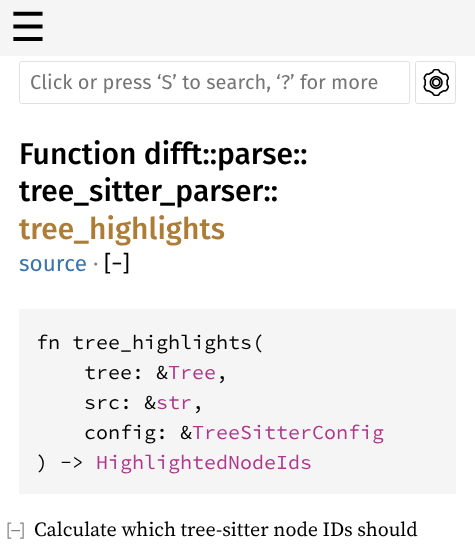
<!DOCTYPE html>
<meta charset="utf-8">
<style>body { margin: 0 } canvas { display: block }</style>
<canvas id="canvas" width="475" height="557"></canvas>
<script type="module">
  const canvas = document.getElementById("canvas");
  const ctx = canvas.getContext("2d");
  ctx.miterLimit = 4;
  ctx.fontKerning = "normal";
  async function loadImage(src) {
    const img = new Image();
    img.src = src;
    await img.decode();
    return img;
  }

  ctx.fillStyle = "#ffffff";
  ctx.fillRect(0, 0, 475, 557);
  ctx.fillStyle = "#f5f5f5";
  ctx.fillRect(0, 0, 475, 56);
  ctx.font = "40px DejaVu Sans";
  ctx.fillStyle = "#000000";
  ctx.fillText("☰", 10, 41);
  ctx.beginPath();
  ctx.roundRect(19.5, 61.5, 390, 42, 2);
  ctx.strokeStyle = "#e0e0e0";
  ctx.stroke();
  ctx.font = "20px Fira Sans";
  ctx.fillStyle = "#757575";
  ctx.fillText("Click or press ‘S’ to search, ‘?’ for more", 30, 89);
  ctx.beginPath();
  ctx.roundRect(415.5, 61.5, 40, 42, 2);
  ctx.stroke();
  ctx.drawImage(await loadImage("img1.png"), 423, 69, 26, 27);
  ctx.font = "500 30px Fira Sans";
  ctx.fillStyle = "#000000";
  ctx.fillText("Function difft::parse::", 19, 164);
  ctx.fillText("tree_sitter_parser::", 19, 201);
  ctx.fillStyle = "#ad7c37";
  ctx.fillText("tree_highlights", 19, 239);
  ctx.font = "22.5px Fira Sans";
  ctx.fillStyle = "#3873ad";
  ctx.fillText("source", 19, 271);
  ctx.fillStyle = "#808080";
  ctx.fillText("·", 93, 271);
  ctx.fillStyle = "#000000";
  ctx.fillText("[−]", 104, 271);
  ctx.fillStyle = "#f5f5f5";
  ctx.fillRect(19, 309, 437, 185);
  ctx.font = "20px Source Code Pro";
  ctx.fillStyle = "#000000";
  ctx.fillText("fn tree_highlights(", 36, 349);
  ctx.fillText("tree: &", 84, 379);
  ctx.fillStyle = "#ad378a";
  ctx.fillText("Tree", 168, 379);
  ctx.fillStyle = "#000000";
  ctx.fillText(",", 216, 379);
  ctx.fillText("src: &", 84, 409);
  ctx.fillStyle = "#ad378a";
  ctx.fillText("str", 156, 409);
  ctx.fillStyle = "#000000";
  ctx.fillText(",", 192, 409);
  ctx.fillText("config: &", 84, 439);
  ctx.fillStyle = "#ad378a";
  ctx.fillText("TreeSitterConfig", 192, 439);
  ctx.fillStyle = "#000000";
  ctx.fillText(") ->", 36, 469);
  ctx.fillStyle = "#ad378a";
  ctx.fillText("HighlightedNodeIds", 96, 469);
  ctx.drawImage(await loadImage("img2.png"), 7, 522, 17, 17);
  ctx.font = "20px 'Source Serif 4'";
  ctx.fillStyle = "#000000";
  ctx.fillText("Calculate which tree-sitter node IDs should", 34, 536);
</script>
